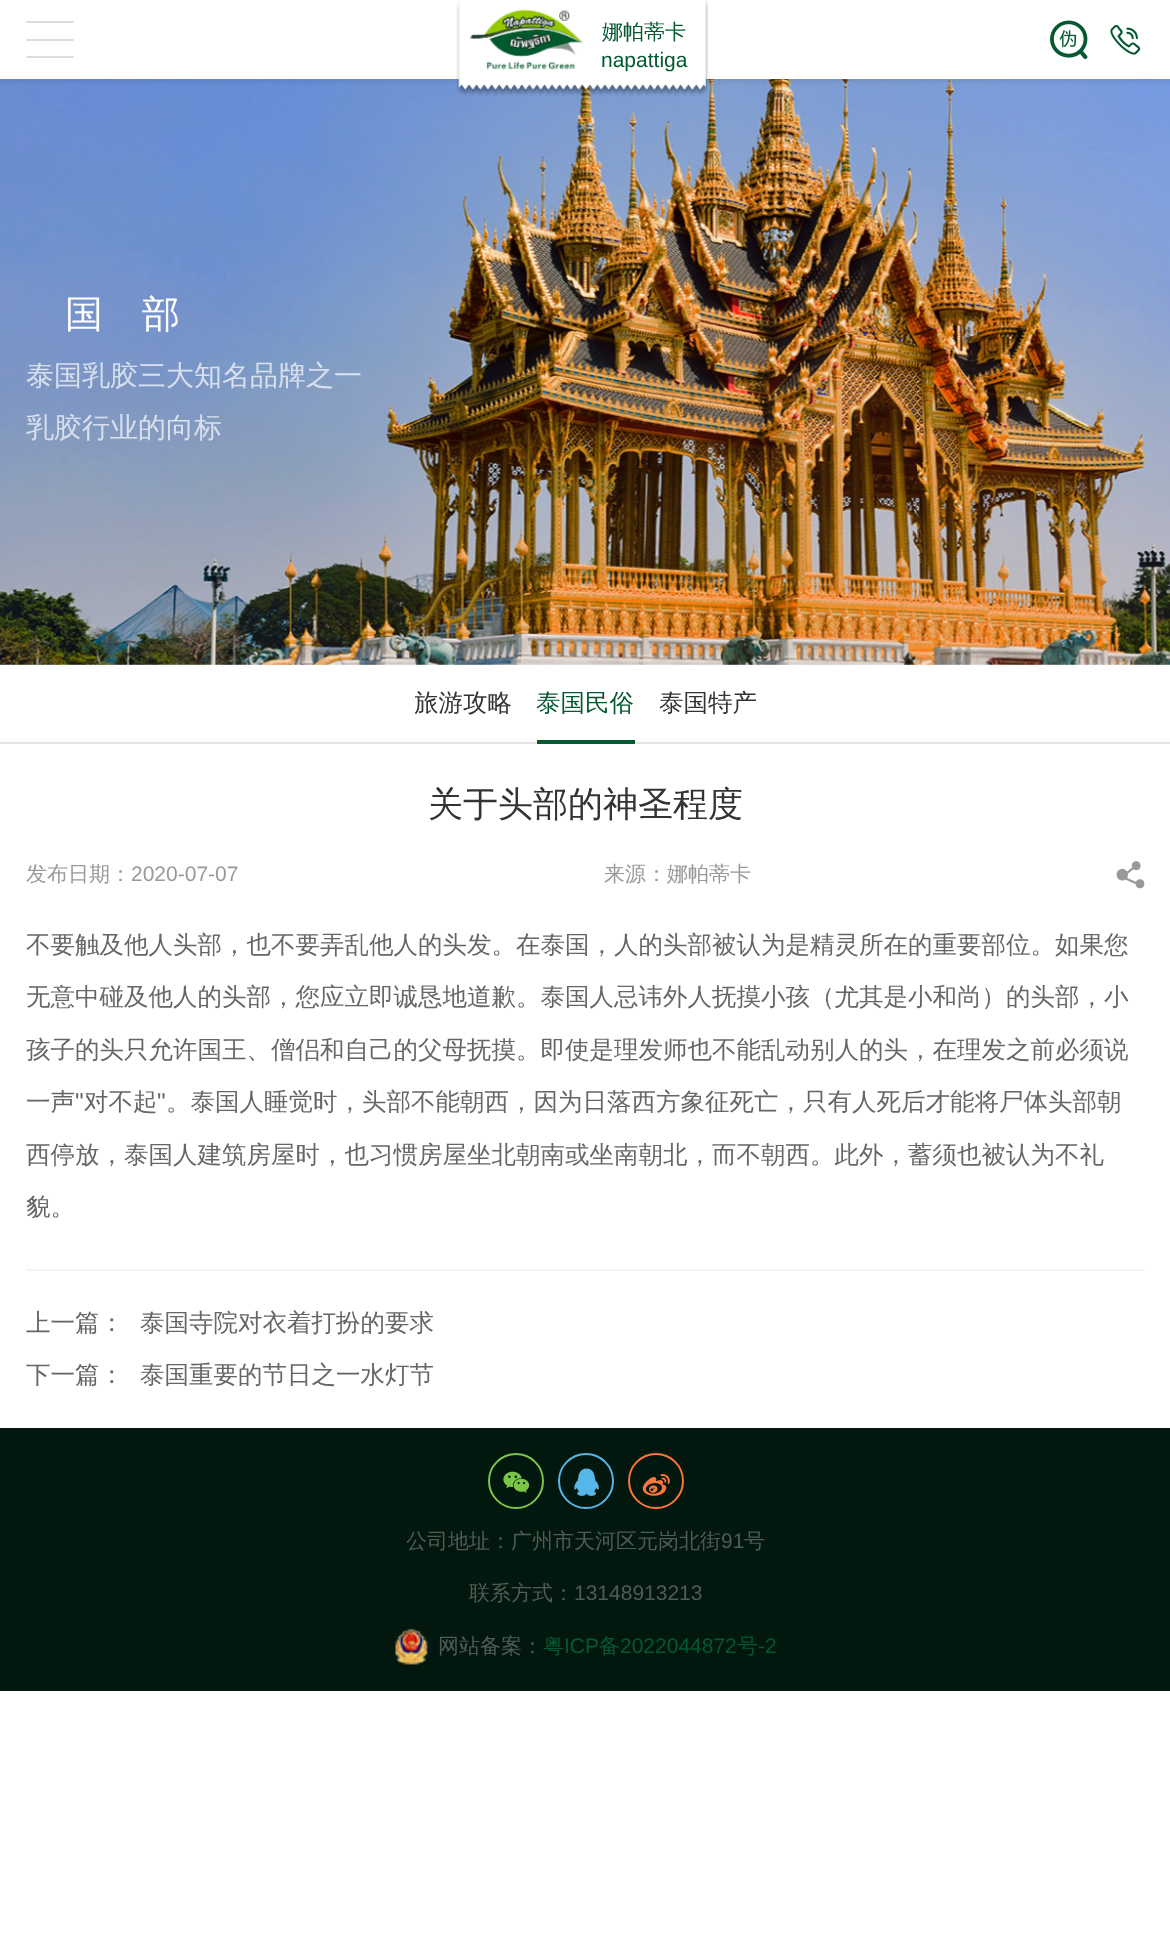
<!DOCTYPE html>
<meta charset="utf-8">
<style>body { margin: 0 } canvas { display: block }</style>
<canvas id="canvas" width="1170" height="1948"></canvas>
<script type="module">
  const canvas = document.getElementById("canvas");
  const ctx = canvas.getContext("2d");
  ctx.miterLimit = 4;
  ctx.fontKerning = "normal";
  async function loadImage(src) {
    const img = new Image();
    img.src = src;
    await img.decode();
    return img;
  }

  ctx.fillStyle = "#ffffff";
  ctx.fillRect(0, 0, 1170, 1948);
  ctx.drawImage(await loadImage("img5.png"), 0, 79, 1170, 586);
  ctx.fillStyle = "rgba(0, 0, 0, 0.1)";
  ctx.filter = "blur(2.5px)";
  ctx.beginPath();
  ctx.rect(0, 2, 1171, 79);
  ctx.fill();
  ctx.filter = "none";
  ctx.fillStyle = "#ffffff";
  ctx.fillRect(0, 0, 1170, 79);
  ctx.fillStyle = "#dddddd";
  ctx.beginPath();
  ctx.roundRect(26, 39, 48, 2, 1);
  ctx.fill();
  ctx.beginPath();
  ctx.roundRect(26, 21, 48, 2, 1);
  ctx.fill();
  ctx.beginPath();
  ctx.roundRect(26, 56, 48, 2, 1);
  ctx.fill();
  ctx.drawImage(await loadImage("img1.png"), 456, 0, 253, 96);
  ctx.drawImage(await loadImage("img2.png"), 469, 9, 115, 61);
  ctx.font = "500 21px WenQuanYi Zen Hei";
  ctx.fillStyle = "#045931";
  ctx.fillText("娜帕蒂卡", 602, 39);
  ctx.font = "21px Liberation Sans";
  ctx.fillText("napattiga", 601, 67);
  ctx.drawImage(await loadImage("img3.png"), 1050, 20, 38, 40);
  ctx.drawImage(await loadImage("img4.png"), 1110, 25, 31, 30);
  ctx.font = "500 38px WenQuanYi Zen Hei";
  ctx.fillStyle = "#ffffff";
  ctx.fillText("国", 65, 327);
  ctx.fillText("部", 142, 327);
  ctx.font = "500 28px WenQuanYi Zen Hei";
  ctx.fillStyle = "#d8e0ee";
  ctx.fillText("泰国乳胶三大知名品牌之一", 26, 385);
  ctx.fillText("乳胶行业的向标", 26, 437);
  ctx.save();
  ctx.beginPath();
  ctx.rect(415, 665, 98, 79);
  ctx.clip();
  ctx.font = "500 24.5px WenQuanYi Zen Hei";
  ctx.fillStyle = "#333333";
  ctx.fillText("旅游攻略", 414, 711);
  ctx.restore();
  ctx.font = "500 24.5px WenQuanYi Zen Hei";
  ctx.fillStyle = "#045931";
  ctx.fillText("泰国民俗", 536, 711);
  ctx.fillStyle = "#e5e5e5";
  ctx.fillRect(0, 742, 1170, 2);
  ctx.fillStyle = "#045931";
  ctx.fillRect(537, 740, 98, 4);
  ctx.fillStyle = "#333333";
  ctx.fillText("泰国特产", 659, 711);
  ctx.font = "500 35px WenQuanYi Zen Hei";
  ctx.fillText("关于头部的神圣程度", 428, 816);
  ctx.font = "500 21px WenQuanYi Zen Hei";
  ctx.fillStyle = "#999999";
  ctx.fillText("发布日期：", 26, 881);
  ctx.font = "21px Liberation Sans";
  ctx.fillText("2020-07-07", 131, 881);
  ctx.font = "500 21px WenQuanYi Zen Hei";
  ctx.fillText("来源：娜帕蒂卡", 604, 881);
  ctx.drawImage(await loadImage("img6.png"), 1116, 861, 29, 28);
  ctx.fillStyle = "#f3f3f3";
  ctx.fillRect(26, 1269, 1119, 2);
  ctx.font = "500 24.5px WenQuanYi Zen Hei";
  ctx.fillStyle = "#666666";
  ctx.fillText("不要触及他人头部，也不要弄乱他人的头发。在泰国，人的头部被认为是精灵所在的重要部位。如果您", 26, 953);
  ctx.fillText("无意中碰及他人的头部，您应立即诚恳地道歉。泰国人忌讳外人抚摸小孩（尤其是小和尚）的头部，小", 26, 1005);
  ctx.fillText("孩子的头只允许国王、僧侣和自己的父母抚摸。即使是理发师也不能乱动别人的头，在理发之前必须说", 26, 1058);
  ctx.fillText("一声", 26, 1110);
  ctx.font = "24.5px Liberation Sans";
  ctx.fillText("\"", 75, 1110);
  ctx.font = "500 24.5px WenQuanYi Zen Hei";
  ctx.fillText("对不起", 84, 1110);
  ctx.font = "24.5px Liberation Sans";
  ctx.fillText("\"", 157, 1110);
  ctx.font = "500 24.5px WenQuanYi Zen Hei";
  ctx.fillText("。泰国人睡觉时，头部不能朝西，因为日落西方象征死亡，只有人死后才能将尸体头部朝", 166, 1110);
  ctx.fillText("西停放，泰国人建筑房屋时，也习惯房屋坐北朝南或坐南朝北，而不朝西。此外，蓄须也被认为不礼", 26, 1163);
  ctx.fillText("貌。", 26, 1215);
  ctx.fillText("上一篇：", 26, 1331);
  ctx.fillText("泰国寺院对衣着打扮的要求", 140, 1331);
  ctx.fillText("下一篇：", 26, 1383);
  ctx.fillText("泰国重要的节日之一水灯节", 140, 1383);
  ctx.fillStyle = "#02170d";
  ctx.fillRect(0, 1428, 1170, 263);
  ctx.beginPath();
  ctx.arc(516, 1481, 27, 0, Math.PI * 2);
  ctx.strokeStyle = "#7bc549";
  ctx.lineWidth = 2;
  ctx.stroke();
  ctx.drawImage(await loadImage("img7.png"), 503, 1471, 27, 22);
  ctx.beginPath();
  ctx.arc(586, 1481, 27, 0, Math.PI * 2);
  ctx.strokeStyle = "#56b6e7";
  ctx.stroke();
  ctx.drawImage(await loadImage("img8.png"), 574, 1468, 25, 28);
  ctx.beginPath();
  ctx.arc(656, 1481, 27, 0, Math.PI * 2);
  ctx.strokeStyle = "#ff763b";
  ctx.stroke();
  ctx.drawImage(await loadImage("img9.png"), 642, 1474, 28, 22);
  ctx.font = "500 21px WenQuanYi Zen Hei";
  ctx.fillStyle = "#4e5d56";
  ctx.fillText("公司地址：广州市天河区元岗北街", 406, 1548);
  ctx.font = "21px Liberation Sans";
  ctx.fillText("91", 721, 1548);
  ctx.font = "500 21px WenQuanYi Zen Hei";
  ctx.fillText("号", 744, 1548);
  ctx.fillText("联系方式：", 469, 1600);
  ctx.font = "21px Liberation Sans";
  ctx.fillText("13148913213", 574, 1600);
  ctx.drawImage(await loadImage("img10.png"), 395, 1628, 33, 37);
  ctx.font = "500 21px WenQuanYi Zen Hei";
  ctx.fillText("网站备案：", 438, 1653);
  ctx.fillStyle = "#045931";
  ctx.fillText("粤", 543, 1653);
  ctx.font = "21px Liberation Sans";
  ctx.fillText("ICP", 564, 1653);
  ctx.font = "500 21px WenQuanYi Zen Hei";
  ctx.fillText("备", 599, 1653);
  ctx.font = "21px Liberation Sans";
  ctx.fillText("2022044872", 620, 1653);
  ctx.font = "500 21px WenQuanYi Zen Hei";
  ctx.fillText("号", 737, 1653);
  ctx.font = "21px Liberation Sans";
  ctx.fillText("-2", 758, 1653);
</script>
